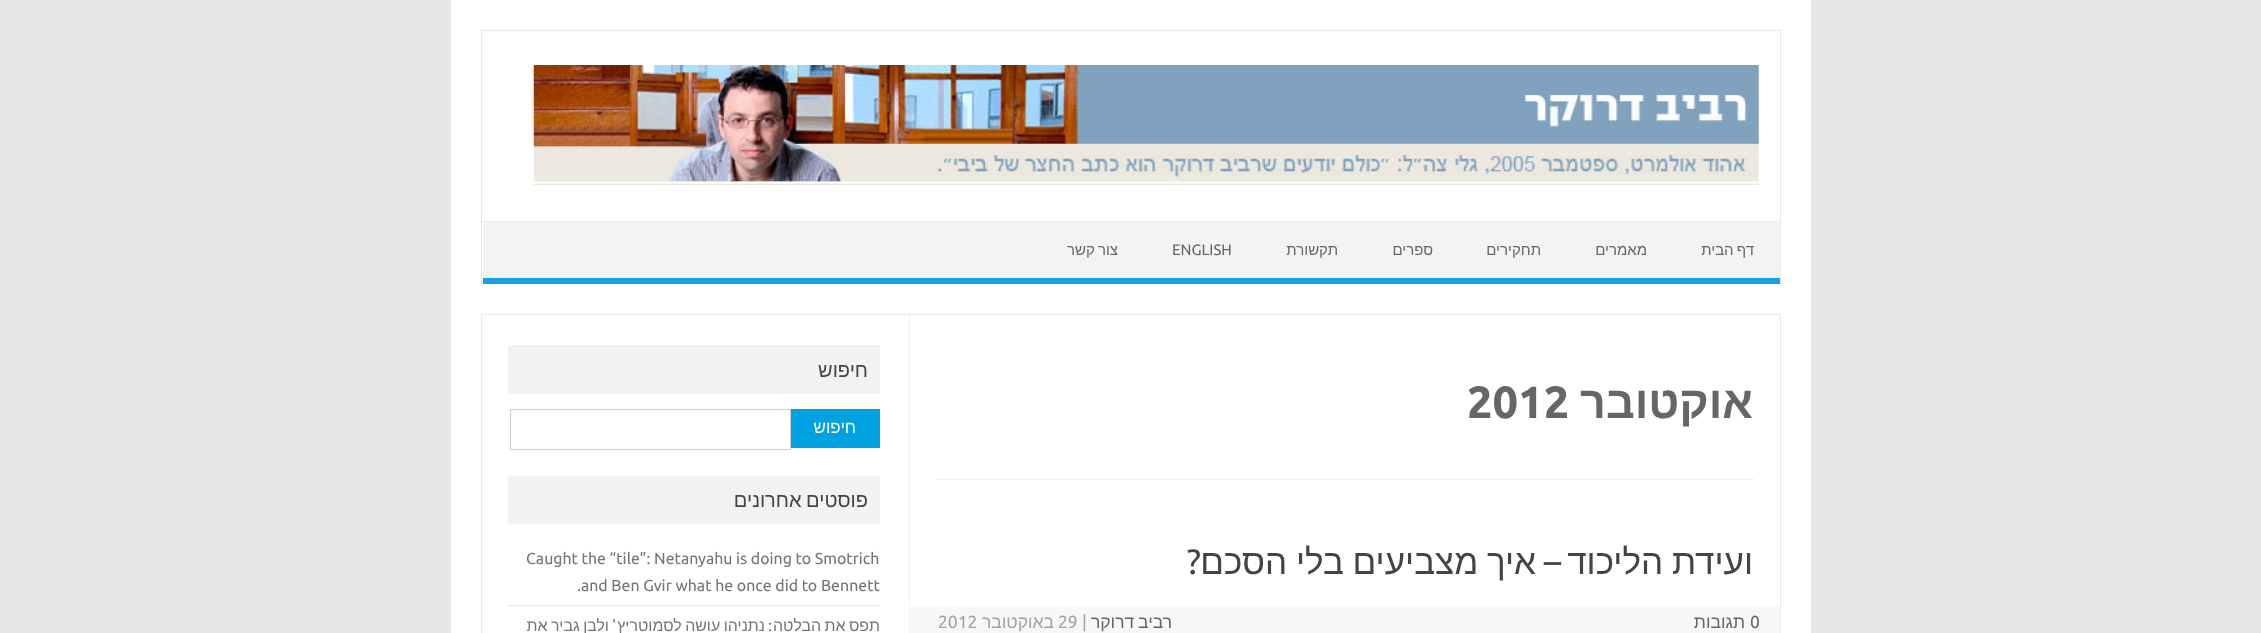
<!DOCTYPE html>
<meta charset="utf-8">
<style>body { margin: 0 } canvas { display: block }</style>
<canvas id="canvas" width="2261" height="633"></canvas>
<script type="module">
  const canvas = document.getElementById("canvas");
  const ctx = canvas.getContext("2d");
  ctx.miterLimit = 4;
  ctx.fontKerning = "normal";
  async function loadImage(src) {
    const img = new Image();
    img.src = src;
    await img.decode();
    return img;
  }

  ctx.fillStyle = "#e6e6e6";
  ctx.fillRect(0, 0, 2261, 633);
  ctx.fillStyle = "#ffffff";
  ctx.fillRect(451, 0, 1360, 633);
  ctx.fillStyle = "#e9e9e9";
  ctx.fillRect(481, 30, 1300, 1);
  ctx.fillRect(1780, 30, 1, 254);
  ctx.fillRect(481, 30, 1, 254);
  ctx.drawImage(await loadImage("img1.png"), 533, 65, 1226, 120);
  ctx.fillStyle = "#f3f3f3";
  ctx.fillRect(483, 222, 1297, 56);
  ctx.fillStyle = "#ededed";
  ctx.fillRect(483, 221, 1297, 1);
  ctx.fillStyle = "#16a1e7";
  ctx.fillRect(483, 278, 1297, 6);
  ctx.wordSpacing = "-1px";
  ctx.direction = "rtl";
  ctx.font = "15px Liberation Sans";
  ctx.fillStyle = "#666666";
  ctx.fillText("דף הבית", 1754, 255);
  ctx.wordSpacing = "0px";
  ctx.fillText("מאמרים", 1647, 255);
  ctx.fillText("תחקירים", 1541, 255);
  ctx.fillText("ספרים", 1433, 255);
  ctx.fillText("תקשורת", 1338, 255);
  ctx.direction = "ltr";
  ctx.font = "15px Ubuntu";
  ctx.fillText("ENGLISH", 1172, 255);
  ctx.wordSpacing = "-1px";
  ctx.direction = "rtl";
  ctx.font = "15px Liberation Sans";
  ctx.fillText("צור קשר", 1118, 255);
  ctx.strokeStyle = "#e9e9e9";
  ctx.strokeRect(481.5, 314.5, 1299, 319);
  ctx.fillStyle = "#f1f1f1";
  ctx.fillRect(909, 315, 1, 318);
  ctx.fillStyle = "#ededed";
  ctx.fillRect(936, 479, 818, 1);
  ctx.wordSpacing = "0px";
  ctx.font = "bold 45px Liberation Sans";
  ctx.fillStyle = "#666666";
  ctx.fillText("אוקטובר", 1753, 418);
  ctx.direction = "ltr";
  ctx.font = "bold 45px Ubuntu";
  ctx.fillText("2012", 1467, 418);
  ctx.wordSpacing = "-1px";
  ctx.direction = "rtl";
  ctx.font = "35px Liberation Sans";
  ctx.fillStyle = "#444444";
  ctx.fillText("ועידת הליכוד", 1753, 574);
  ctx.wordSpacing = "0px";
  ctx.font = "35px Ubuntu";
  ctx.fillText("–", 1561, 574);
  ctx.wordSpacing = "-1px";
  ctx.font = "35px Liberation Sans";
  ctx.fillText("איך מצביעים בלי הסכם", 1536, 574);
  ctx.wordSpacing = "0px";
  ctx.font = "35px Ubuntu";
  ctx.fillText("?", 1201, 574);
  ctx.fillStyle = "#f7f7f7";
  ctx.fillRect(910, 606, 870, 27);
  ctx.direction = "ltr";
  ctx.font = "17.5px Ubuntu";
  ctx.fillStyle = "#666666";
  ctx.fillText("0", 1750, 628);
  ctx.direction = "rtl";
  ctx.font = "17.5px Liberation Sans";
  ctx.fillText("תגובות", 1745, 628);
  ctx.wordSpacing = "-1px";
  ctx.fillText("רביב דרוקר", 1172, 628);
  ctx.wordSpacing = "0px";
  ctx.direction = "ltr";
  ctx.font = "17.5px Ubuntu";
  ctx.fillStyle = "#a2a2a2";
  ctx.fillText("|", 1082, 628);
  ctx.fillText("29", 1058, 628);
  ctx.direction = "rtl";
  ctx.font = "17.5px Liberation Sans";
  ctx.fillText("באוקטובר", 1054, 628);
  ctx.direction = "ltr";
  ctx.font = "17.5px Ubuntu";
  ctx.fillText("2012", 938, 628);
  ctx.fillStyle = "#f2f2f2";
  ctx.fillRect(508, 345, 372, 49);
  ctx.direction = "rtl";
  ctx.font = "20px Liberation Sans";
  ctx.fillStyle = "#444444";
  ctx.fillText("חיפוש", 868, 377);
  ctx.fillStyle = "#00a1e0";
  ctx.fillRect(791, 409, 89, 39);
  ctx.font = "17px Liberation Sans";
  ctx.fillStyle = "#ffffff";
  ctx.fillText("חיפוש", 856, 433);
  ctx.strokeStyle = "#cccccc";
  ctx.strokeRect(510.5, 409.5, 280, 40);
  ctx.fillStyle = "#f2f2f2";
  ctx.fillRect(508, 476, 372, 48);
  ctx.wordSpacing = "-1px";
  ctx.font = "20px Liberation Sans";
  ctx.fillStyle = "#444444";
  ctx.fillText("פוסטים אחרונים", 868, 507);
  ctx.fillStyle = "#e9e9e9";
  ctx.fillRect(508, 605, 372, 1);
  ctx.wordSpacing = "0px";
  ctx.direction = "ltr";
  ctx.font = "15.9px Ubuntu";
  ctx.fillStyle = "#757575";
  ctx.fillText("Caught the “tile”: Netanyahu is doing to Smotrich", 526, 564);
  ctx.fillText(".and Ben Gvir what he once did to Bennett", 577, 591);
  ctx.wordSpacing = "-1px";
  ctx.direction = "rtl";
  ctx.font = "15.9px Liberation Sans";
  ctx.fillText("תפס את הבלטה", 880, 631);
  ctx.wordSpacing = "0px";
  ctx.font = "15.9px Ubuntu";
  ctx.fillText(":", 772, 631);
  ctx.wordSpacing = "-1px";
  ctx.font = "15.9px Liberation Sans";
  ctx.fillText("נתניהו עושה לסמוטריץ", 765, 631);
  ctx.wordSpacing = "0px";
  ctx.font = "15.9px Ubuntu";
  ctx.fillText("'", 616, 631);
  ctx.wordSpacing = "-1px";
  ctx.font = "15.9px Liberation Sans";
  ctx.fillText("ולבן גביר את", 609, 631);
</script>
